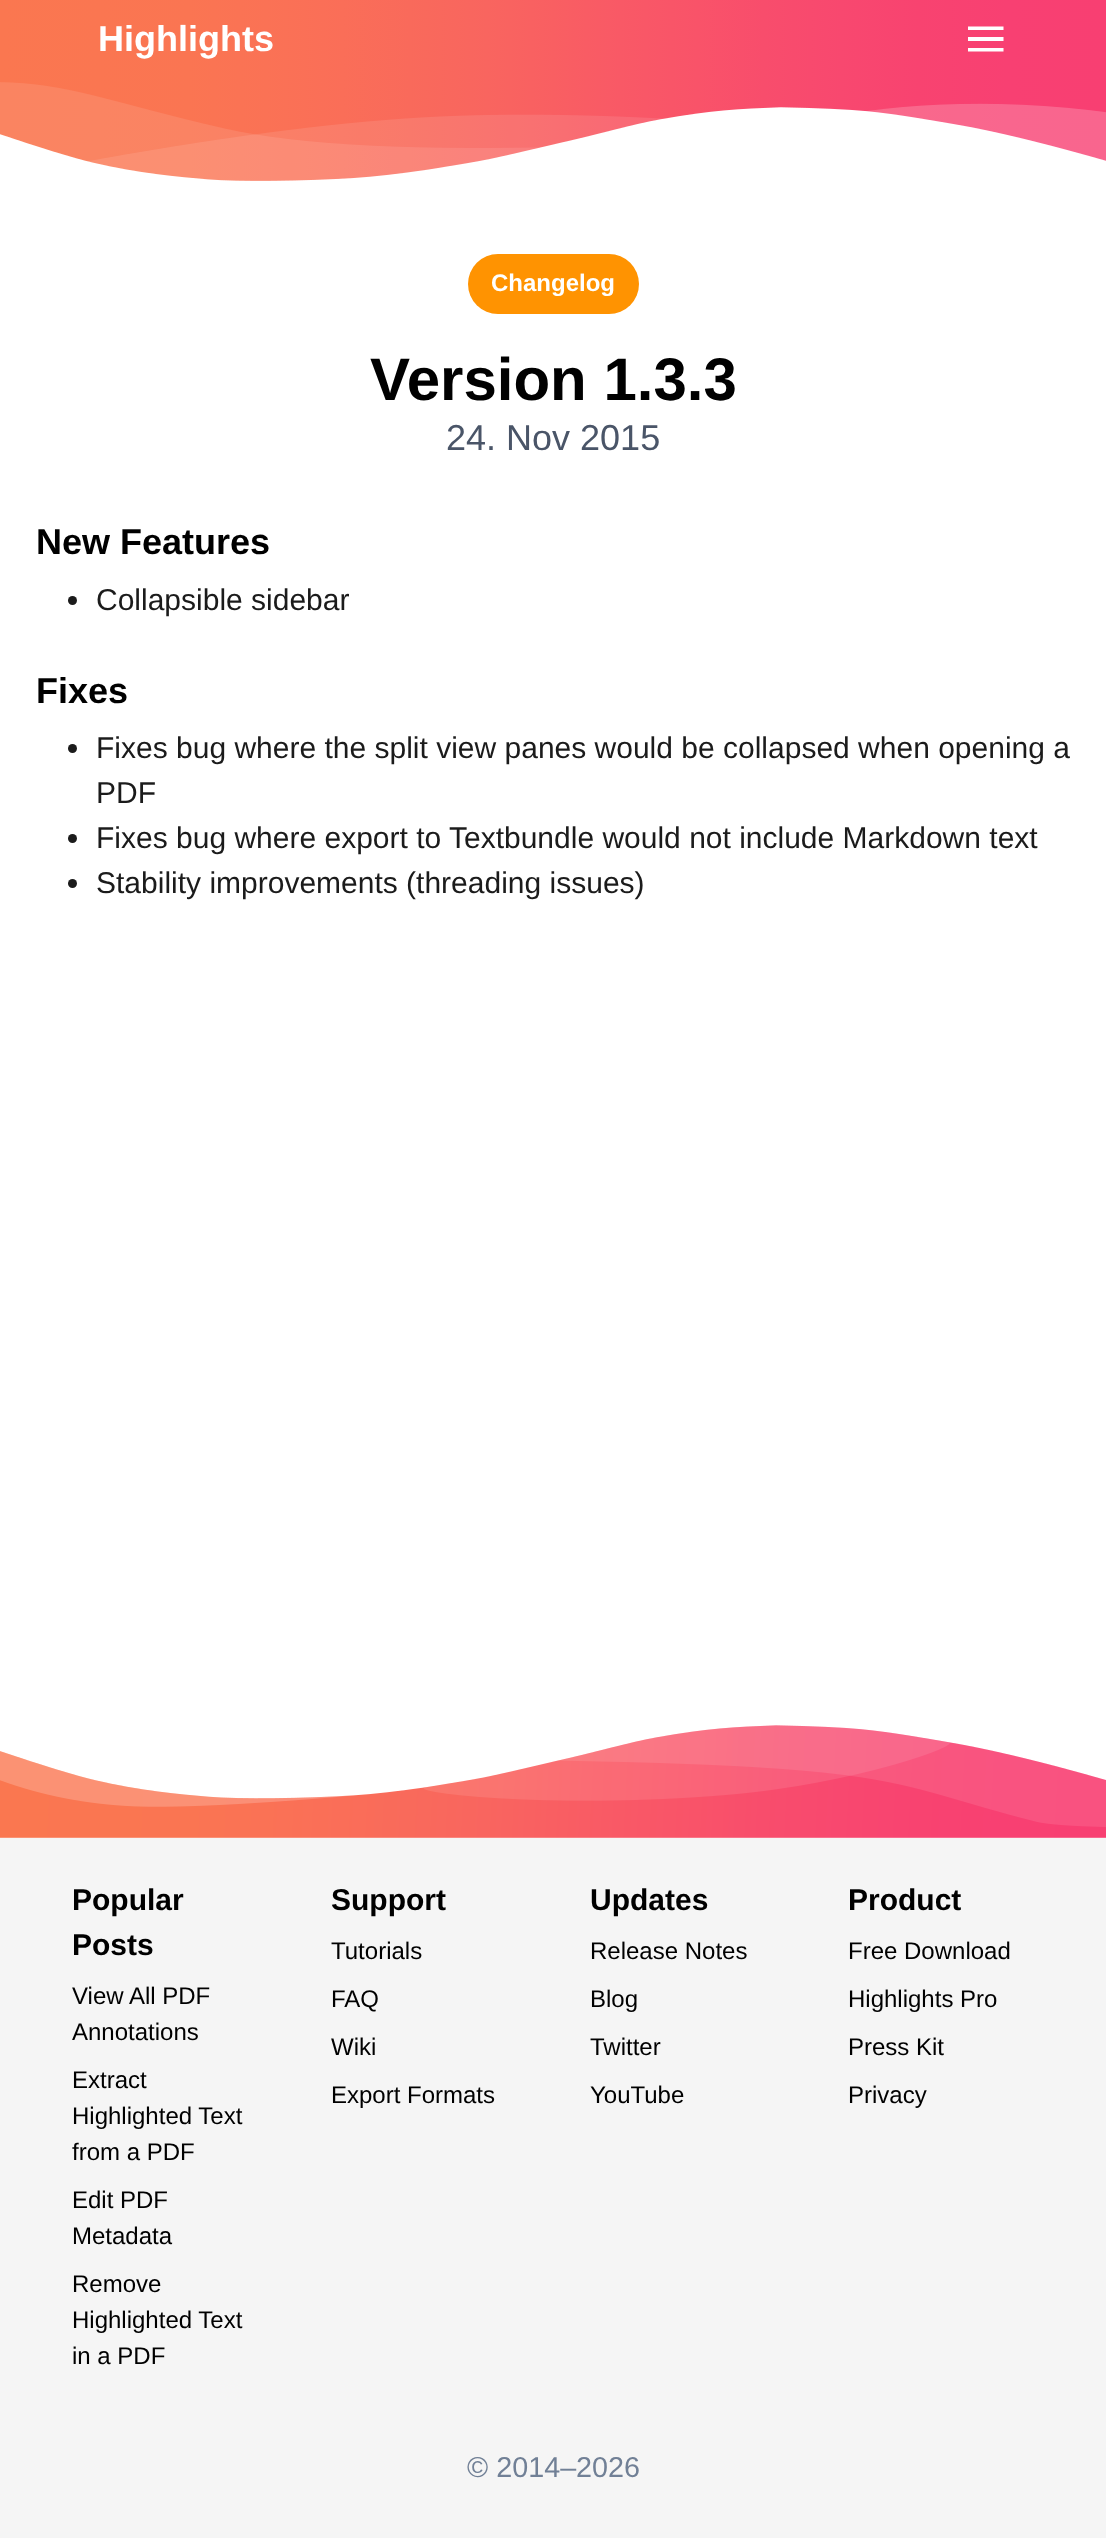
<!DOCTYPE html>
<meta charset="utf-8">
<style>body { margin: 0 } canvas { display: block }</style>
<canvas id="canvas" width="1106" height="2538"></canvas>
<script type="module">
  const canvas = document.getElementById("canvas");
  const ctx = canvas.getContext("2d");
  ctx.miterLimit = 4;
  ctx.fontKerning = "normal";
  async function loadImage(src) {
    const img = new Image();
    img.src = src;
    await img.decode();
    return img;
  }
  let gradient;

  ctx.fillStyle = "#f5f5f5";
  ctx.fillRect(0, 0, 1106, 2538);
  gradient = ctx.createLinearGradient(0, 56, 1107, 55);
  gradient.addColorStop(0, "#fa7750");
  gradient.addColorStop(0.09, "#fa7651");
  gradient.addColorStop(0.17, "#fa7552");
  gradient.addColorStop(0.24, "#fa7255");
  gradient.addColorStop(0.31, "#fa6e58");
  gradient.addColorStop(0.37, "#f96a5b");
  gradient.addColorStop(0.44, "#f9655f");
  gradient.addColorStop(0.5, "#f95f62");
  gradient.addColorStop(0.56, "#f95966");
  gradient.addColorStop(0.63, "#f95369");
  gradient.addColorStop(0.69, "#f84d6c");
  gradient.addColorStop(0.76, "#f8486f");
  gradient.addColorStop(0.83, "#f84370");
  gradient.addColorStop(0.91, "#f84072");
  gradient.addColorStop(1, "#f83f72");
  ctx.fillStyle = gradient;
  ctx.fillRect(0, 0, 1106, 181);
  ctx.drawImage(await loadImage("img1.png"), 0, 82, 1106, 101);
  ctx.font = "bold 36px Liberation Sans";
  ctx.fillStyle = "#ffffff";
  ctx.fillText("Highlights", 98, 51);
  ctx.save();
  ctx.beginPath();
  ctx.rect(968, 21, 36, 36);
  ctx.clip();
  ctx.beginPath();
  ctx.moveTo(967.5, 26.5);
  ctx.lineTo(1003.5, 26.5);
  ctx.lineTo(1003.5, 30);
  ctx.lineTo(967.5, 30);
  ctx.closePath();
  ctx.moveTo(967.5, 37);
  ctx.lineTo(1003.5, 37);
  ctx.lineTo(1003.5, 41);
  ctx.lineTo(967.5, 41);
  ctx.closePath();
  ctx.moveTo(967.5, 48);
  ctx.lineTo(1003.5, 48);
  ctx.lineTo(1003.5, 51.5);
  ctx.lineTo(967.5, 51.5);
  ctx.closePath();
  ctx.fill();
  ctx.restore();
  ctx.fillRect(0, 183, 1106, 1655);
  ctx.fillStyle = "#ff9301";
  ctx.beginPath();
  ctx.roundRect(468, 254, 171, 60, 30);
  ctx.fill();
  ctx.font = "bold 24px Liberation Sans";
  ctx.fillStyle = "#ffffff";
  ctx.fillText("Changelog", 491, 291);
  ctx.font = "bold 60px Liberation Sans";
  ctx.fillStyle = "#000000";
  ctx.fillText("Version 1.3.3", 370, 400);
  ctx.font = "36px Liberation Sans";
  ctx.fillStyle = "#4a5568";
  ctx.fillText("24. Nov 2015", 446, 450);
  ctx.font = "bold 36px Liberation Sans";
  ctx.fillStyle = "#000000";
  ctx.fillText("New Features", 36, 554);
  ctx.fillStyle = "#1b1b1b";
  ctx.beginPath();
  ctx.arc(72.5, 600.5, 4.5, 0, Math.PI * 2);
  ctx.fill();
  ctx.font = "30px Liberation Sans";
  ctx.fillText("Collapsible sidebar", 96, 610);
  ctx.font = "bold 36px Liberation Sans";
  ctx.fillStyle = "#000000";
  ctx.fillText("Fixes", 36, 703);
  ctx.fillStyle = "#1b1b1b";
  ctx.beginPath();
  ctx.arc(72.5, 748.5, 4.5, 0, Math.PI * 2);
  ctx.fill();
  ctx.font = "30px Liberation Sans";
  ctx.fillText("Fixes bug where the split view panes would be collapsed when opening a", 96, 758);
  ctx.fillText("PDF", 96, 803);
  ctx.beginPath();
  ctx.arc(72.5, 838.5, 4.5, 0, Math.PI * 2);
  ctx.fill();
  ctx.fillText("Fixes bug where export to Textbundle would not include Markdown text", 96, 848);
  ctx.beginPath();
  ctx.arc(72.5, 883.5, 4.5, 0, Math.PI * 2);
  ctx.fill();
  ctx.fillText("Stability improvements (threading issues)", 96, 893);
  ctx.drawImage(await loadImage("img2.png"), 0, 1725, 1106, 113);
  ctx.font = "bold 30px Liberation Sans";
  ctx.fillStyle = "#000000";
  ctx.fillText("Popular", 72, 1910);
  ctx.fillText("Posts", 72, 1955);
  ctx.font = "24px Liberation Sans";
  ctx.fillText("View All PDF", 72, 2004);
  ctx.fillText("Annotations", 72, 2040);
  ctx.fillText("Extract", 72, 2088);
  ctx.fillText("Highlighted Text", 72, 2124);
  ctx.fillText("from a PDF", 72, 2160);
  ctx.fillText("Edit PDF", 72, 2208);
  ctx.fillText("Metadata", 72, 2244);
  ctx.fillText("Remove", 72, 2292);
  ctx.fillText("Highlighted Text", 72, 2328);
  ctx.fillText("in a PDF", 72, 2364);
  ctx.font = "bold 30px Liberation Sans";
  ctx.fillText("Support", 331, 1910);
  ctx.font = "24px Liberation Sans";
  ctx.fillText("Tutorials", 331, 1959);
  ctx.fillText("FAQ", 331, 2007);
  ctx.fillText("Wiki", 331, 2055);
  ctx.fillText("Export Formats", 331, 2103);
  ctx.font = "bold 30px Liberation Sans";
  ctx.fillText("Updates", 590, 1910);
  ctx.font = "24px Liberation Sans";
  ctx.fillText("Release Notes", 590, 1959);
  ctx.fillText("Blog", 590, 2007);
  ctx.fillText("Twitter", 590, 2055);
  ctx.fillText("YouTube", 590, 2103);
  ctx.font = "bold 30px Liberation Sans";
  ctx.fillText("Product", 848, 1910);
  ctx.font = "24px Liberation Sans";
  ctx.fillText("Free Download", 848, 1959);
  ctx.fillText("Highlights Pro", 848, 2007);
  ctx.fillText("Press Kit", 848, 2055);
  ctx.fillText("Privacy", 848, 2103);
  ctx.font = "28.75px Liberation Sans";
  ctx.fillStyle = "#718096";
  ctx.fillText("© 2014–2026", 467, 2477);
</script>
